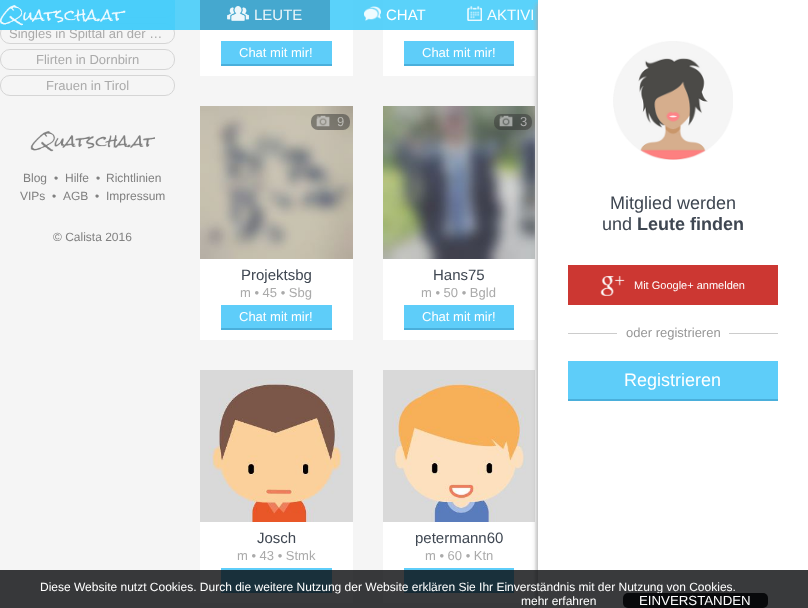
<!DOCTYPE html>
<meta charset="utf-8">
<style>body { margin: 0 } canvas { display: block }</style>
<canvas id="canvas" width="808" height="608"></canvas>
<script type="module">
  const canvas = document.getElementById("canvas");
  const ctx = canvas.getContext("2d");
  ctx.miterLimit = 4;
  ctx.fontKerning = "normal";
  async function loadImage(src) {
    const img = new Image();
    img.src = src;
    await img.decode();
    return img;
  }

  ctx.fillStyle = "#f5f5f5";
  ctx.fillRect(0, 0, 808, 608);
  ctx.beginPath();
  ctx.roundRect(0.5, -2.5, 174, 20, 9.5);
  ctx.strokeStyle = "#d5d5d5";
  ctx.stroke();
  ctx.beginPath();
  ctx.roundRect(0.5, 23.5, 174, 20, 9.5);
  ctx.stroke();
  ctx.font = "13px Liberation Sans";
  ctx.fillStyle = "#aaaaaa";
  ctx.fillText("Singles in Spittal an der …", 9, 38);
  ctx.fillStyle = "#ffffff";
  ctx.fillRect(200, 0, 153, 76);
  ctx.fillRect(383, 0, 152, 76);
  ctx.fillStyle = "rgba(72, 205, 250, 0.9)";
  ctx.fillRect(0, 0, 538, 30);
  ctx.fillRect(0, 0, 175, 30);
  ctx.drawImage(await loadImage("img1.png"), 0, 5, 126, 21);
  ctx.fillStyle = "rgba(67, 163, 202, 0.9)";
  ctx.fillRect(200, 0, 130, 30);
  ctx.drawImage(await loadImage("img2.png"), 227, 6, 22, 15);
  ctx.font = "15px Liberation Sans";
  ctx.fillStyle = "#ecf6fa";
  ctx.fillText("LEUTE", 254, 20);
  ctx.drawImage(await loadImage("img3.png"), 364, 6, 17, 15);
  ctx.fillStyle = "#ffffff";
  ctx.fillText("CHAT", 386, 20);
  ctx.drawImage(await loadImage("img4.png"), 467, 6, 15, 15);
  ctx.fillStyle = "#f7fdfe";
  ctx.fillText("AKTIVI", 487, 20);
  ctx.beginPath();
  ctx.roundRect(0.5, 49.5, 174, 20, 9.5);
  ctx.stroke();
  ctx.font = "13px Liberation Sans";
  ctx.fillStyle = "#aaaaaa";
  ctx.fillText("Flirten in Dornbirn", 36, 64);
  ctx.beginPath();
  ctx.roundRect(0.5, 75.5, 174, 20, 9.5);
  ctx.stroke();
  ctx.fillText("Frauen in Tirol", 46, 90);
  ctx.drawImage(await loadImage("img5.png"), 30, 131, 125, 21);
  ctx.font = "12px Liberation Sans";
  ctx.fillStyle = "#808080";
  ctx.fillText("Blog", 23, 182);
  ctx.fillText("•", 54, 182);
  ctx.fillText("Hilfe", 65, 182);
  ctx.fillText("•", 96, 182);
  ctx.fillText("Richtlinien", 106, 182);
  ctx.fillText("VIPs", 20, 200);
  ctx.fillText("•", 52, 200);
  ctx.fillText("AGB", 63, 200);
  ctx.fillText("•", 95, 200);
  ctx.fillText("Impressum", 106, 200);
  ctx.fillText("© Calista 2016", 53, 241);
  ctx.fillStyle = "#5ecdf9";
  ctx.fillRect(221, 41, 111, 23);
  ctx.fillStyle = "#4aafdb";
  ctx.fillRect(221, 64, 111, 2);
  ctx.font = "13px Liberation Sans";
  ctx.fillStyle = "#ffffff";
  ctx.fillText("Chat mit mir!", 239, 57);
  ctx.fillStyle = "#5ecdf9";
  ctx.fillRect(404, 41, 110, 23);
  ctx.fillStyle = "#4aafdb";
  ctx.fillRect(404, 64, 110, 2);
  ctx.fillStyle = "#ffffff";
  ctx.fillText("Chat mit mir!", 422, 57);
  ctx.drawImage(await loadImage("img6.png"), 200, 106, 153, 153);
  ctx.fillStyle = "rgba(51, 51, 51, 0.5)";
  ctx.beginPath();
  ctx.roundRect(311, 114, 39, 16, 7);
  ctx.fill();
  ctx.drawImage(await loadImage("img7.png"), 316, 115, 14, 12);
  ctx.fillStyle = "#bab9b4";
  ctx.fillText("9", 337, 126);
  ctx.fillStyle = "#ffffff";
  ctx.fillRect(200, 259, 153, 81);
  ctx.font = "15px Liberation Sans";
  ctx.fillStyle = "#3f4752";
  ctx.fillText("Projektsbg", 241, 280);
  ctx.font = "13px Liberation Sans";
  ctx.fillStyle = "#aaaaaa";
  ctx.fillText("m • 45 • Sbg", 240, 297);
  ctx.fillStyle = "#5ecdf9";
  ctx.fillRect(221, 305, 111, 23);
  ctx.fillStyle = "#4aafdb";
  ctx.fillRect(221, 328, 111, 2);
  ctx.fillStyle = "#ffffff";
  ctx.fillText("Chat mit mir!", 239, 321);
  ctx.drawImage(await loadImage("img8.png"), 383, 106, 152, 153);
  ctx.fillStyle = "rgba(51, 51, 51, 0.5)";
  ctx.beginPath();
  ctx.roundRect(494, 114, 38, 16, 7);
  ctx.fill();
  ctx.drawImage(await loadImage("img9.png"), 499, 115, 14, 12);
  ctx.fillStyle = "#aaaaaa";
  ctx.fillText("3", 520, 126);
  ctx.fillStyle = "#ffffff";
  ctx.fillRect(383, 259, 152, 81);
  ctx.font = "15px Liberation Sans";
  ctx.fillStyle = "#3f4752";
  ctx.fillText("Hans75", 433, 280);
  ctx.font = "13px Liberation Sans";
  ctx.fillStyle = "#aaaaaa";
  ctx.fillText("m • 50 • Bgld", 421, 297);
  ctx.fillStyle = "#5ecdf9";
  ctx.fillRect(404, 305, 110, 23);
  ctx.fillStyle = "#4aafdb";
  ctx.fillRect(404, 328, 110, 2);
  ctx.fillStyle = "#ffffff";
  ctx.fillText("Chat mit mir!", 422, 321);
  ctx.drawImage(await loadImage("img10.png"), 200, 370, 153, 152);
  ctx.fillRect(200, 522, 153, 81);
  ctx.font = "15px Liberation Sans";
  ctx.fillStyle = "#3f4752";
  ctx.fillText("Josch", 257, 543);
  ctx.font = "13px Liberation Sans";
  ctx.fillStyle = "#aaaaaa";
  ctx.fillText("m • 43 • Stmk", 237, 560);
  ctx.fillStyle = "#5ecdf9";
  ctx.fillRect(221, 568, 111, 23);
  ctx.fillStyle = "#4aafdb";
  ctx.fillRect(221, 591, 111, 2);
  ctx.drawImage(await loadImage("img11.png"), 383, 370, 152, 152);
  ctx.fillStyle = "#ffffff";
  ctx.fillRect(383, 522, 152, 81);
  ctx.font = "15px Liberation Sans";
  ctx.fillStyle = "#3f4752";
  ctx.fillText("petermann60", 415, 543);
  ctx.font = "13px Liberation Sans";
  ctx.fillStyle = "#aaaaaa";
  ctx.fillText("m • 60 • Ktn", 425, 560);
  ctx.fillStyle = "#5ecdf9";
  ctx.fillRect(404, 568, 110, 23);
  ctx.fillStyle = "#4aafdb";
  ctx.fillRect(404, 591, 110, 2);
  ctx.fillStyle = "#aaaaaa";
  ctx.filter = "blur(2.5px)";
  ctx.beginPath();
  ctx.rect(537, 4, 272, 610);
  ctx.fill();
  ctx.filter = "none";
  ctx.fillStyle = "#ffffff";
  ctx.fillRect(538, 0, 270, 608);
  ctx.drawImage(await loadImage("img12.png"), 613, 41, 120, 119);
  ctx.font = "18px Liberation Sans";
  ctx.fillStyle = "#3f4752";
  ctx.fillText("Mitglied werden", 610, 209);
  ctx.fillText("und", 602, 230);
  ctx.font = "bold 18px Liberation Sans";
  ctx.fillText("Leute finden", 637, 230);
  ctx.fillStyle = "#cc3732";
  ctx.fillRect(568, 265, 210, 40);
  ctx.drawImage(await loadImage("img13.png"), 600, 276, 25, 20);
  ctx.font = "11px Liberation Sans";
  ctx.fillStyle = "#ffffff";
  ctx.fillText("Mit Google+ anmelden", 634, 289);
  ctx.fillStyle = "#cccccc";
  ctx.fillRect(568, 333, 49, 1);
  ctx.font = "13px Liberation Sans";
  ctx.fillStyle = "#979797";
  ctx.fillText("oder registrieren", 626, 337);
  ctx.fillStyle = "#cccccc";
  ctx.fillRect(729, 333, 49, 1);
  ctx.fillStyle = "#5ecdf9";
  ctx.fillRect(568, 361, 210, 38);
  ctx.fillStyle = "#4aafdb";
  ctx.fillRect(568, 399, 210, 2);
  ctx.font = "18px Liberation Sans";
  ctx.fillStyle = "#ffffff";
  ctx.fillText("Registrieren", 624, 386);
  ctx.fillStyle = "rgba(8, 9, 11, 0.8)";
  ctx.fillRect(0, 570, 808, 38);
  ctx.font = "12px Liberation Sans";
  ctx.fillStyle = "#ffffff";
  ctx.fillText("Diese Website nutzt Cookies. Durch die weitere Nutzung der Website erklären Sie Ihr Einverständnis mit der Nutzung von Cookies.", 40, 591);
  ctx.fillText("mehr erfahren", 521, 605);
  ctx.fillStyle = "#08090b";
  ctx.beginPath();
  ctx.roundRect(623, 593, 145, 15, 5);
  ctx.fill();
  ctx.font = "13.25px Liberation Sans";
  ctx.fillStyle = "#ffffff";
  ctx.fillText("EINVERSTANDEN", 639, 605);
</script>
